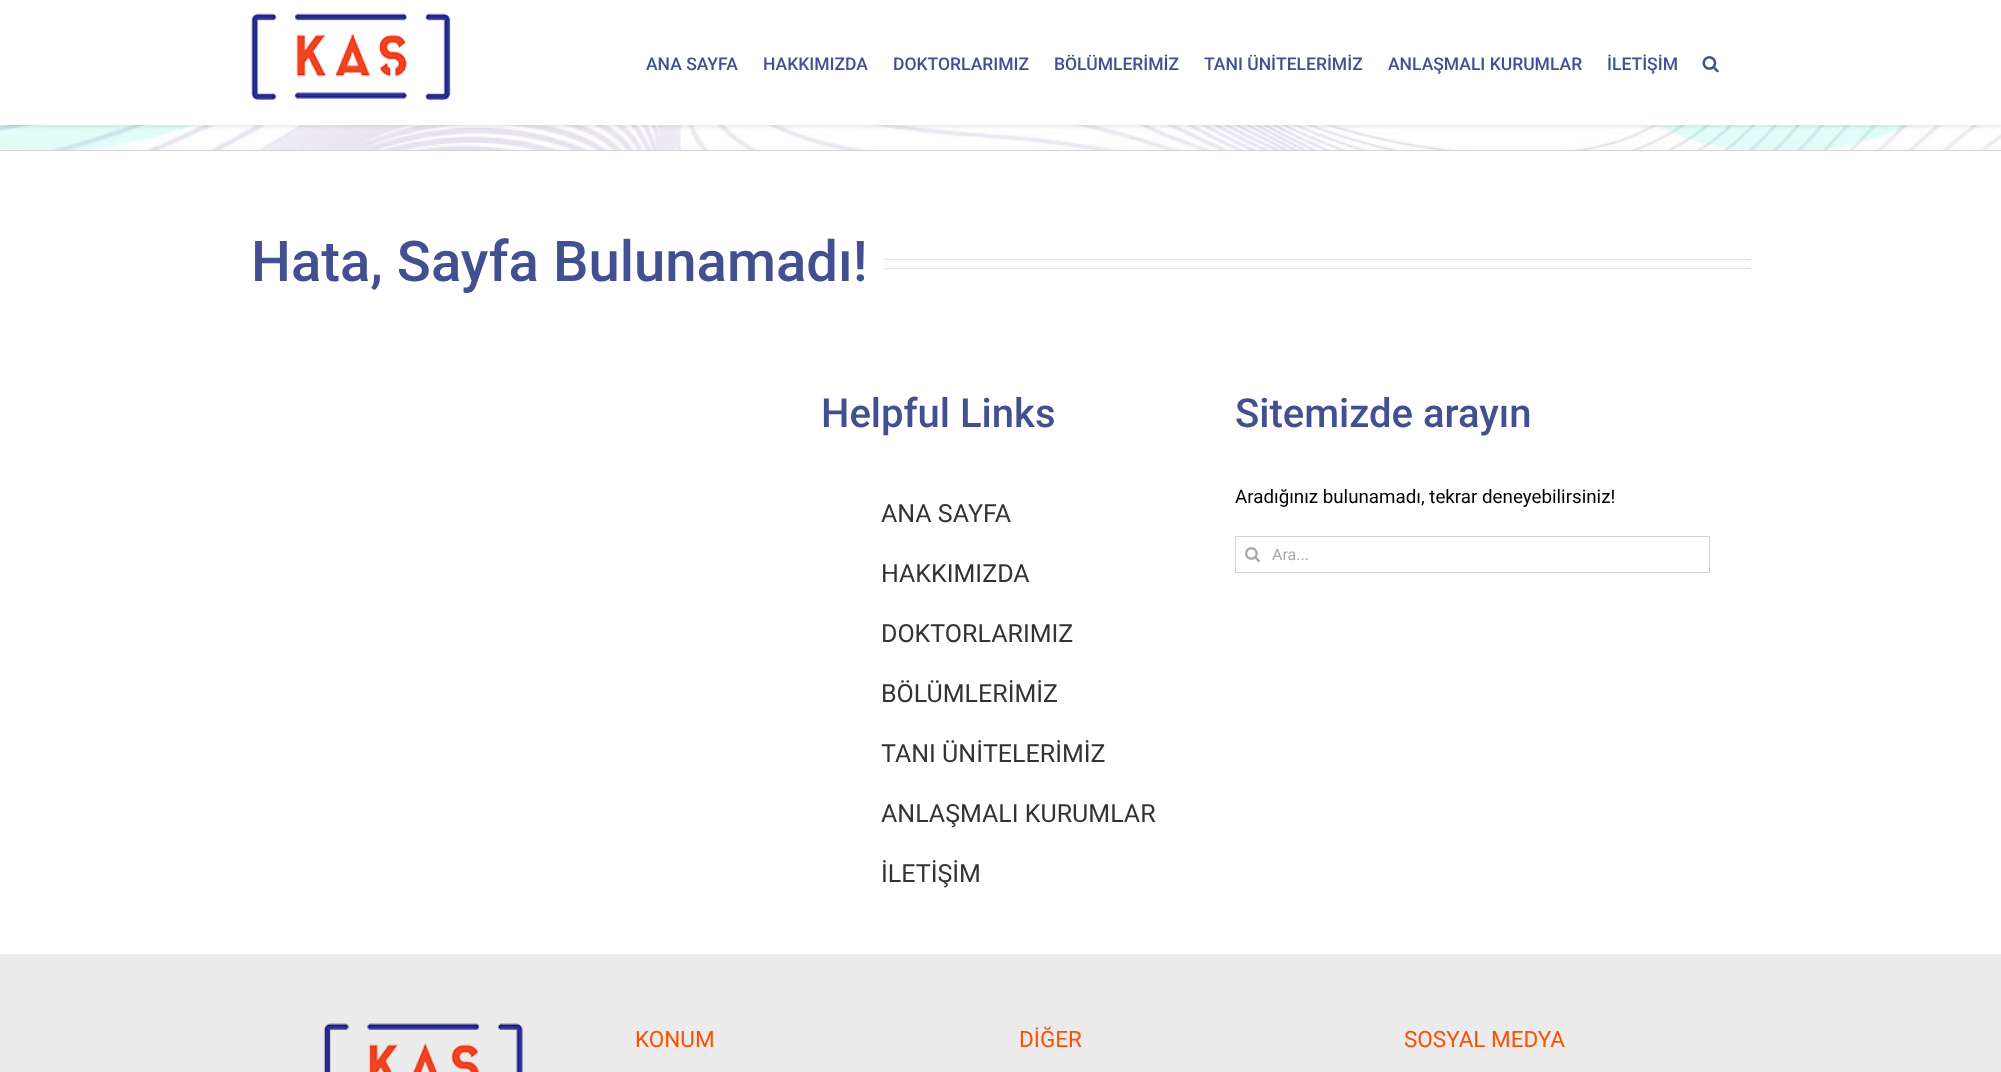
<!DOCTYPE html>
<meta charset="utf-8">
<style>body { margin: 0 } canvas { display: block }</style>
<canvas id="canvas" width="2001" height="1072"></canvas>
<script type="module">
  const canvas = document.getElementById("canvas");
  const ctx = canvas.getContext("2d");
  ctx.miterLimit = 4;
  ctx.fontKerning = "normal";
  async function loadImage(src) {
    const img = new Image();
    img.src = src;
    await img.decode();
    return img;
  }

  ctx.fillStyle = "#ffffff";
  ctx.fillRect(0, 0, 2001, 1072);
  ctx.drawImage(await loadImage("img3.png"), 0, 125, 2001, 25);
  ctx.fillStyle = "rgba(0, 0, 0, 0.12)";
  ctx.filter = "blur(2px)";
  ctx.beginPath();
  ctx.rect(0, 1, 2001, 125);
  ctx.fill();
  ctx.filter = "none";
  ctx.fillStyle = "#ffffff";
  ctx.fillRect(0, 0, 2001, 125);
  ctx.drawImage(await loadImage("img1.png"), 251, 13, 200, 87);
  ctx.font = "500 17.5px Roboto";
  ctx.fillStyle = "#424f90";
  ctx.fillText("ANA SAYFA", 646, 70);
  ctx.fillText("HAKKIMIZDA", 763, 70);
  ctx.fillText("DOKTORLARIMIZ", 893, 70);
  ctx.fillText("BÖLÜMLERİMİZ", 1054, 70);
  ctx.fillText("TANI ÜNİTELERİMİZ", 1204, 70);
  ctx.fillText("ANLAŞMALI KURUMLAR", 1388, 70);
  ctx.fillText("İLETİŞİM", 1607, 70);
  ctx.drawImage(await loadImage("img2.png"), 1702, 56, 17, 17);
  ctx.fillStyle = "#d2d3d4";
  ctx.fillRect(0, 150, 2001, 1);
  ctx.font = "500 56.25px Roboto";
  ctx.fillStyle = "#424f90";
  ctx.fillText("Hata, Sayfa Bulunamadı!", 251, 281);
  ctx.fillStyle = "#e0dede";
  ctx.fillRect(884, 259, 867, 1);
  ctx.fillRect(884, 268, 867, 1);
  ctx.font = "500 40px Roboto";
  ctx.fillStyle = "#424f90";
  ctx.fillText("Helpful Links", 821, 427);
  ctx.font = "25px Roboto";
  ctx.fillStyle = "#333333";
  ctx.fillText("ANA SAYFA", 881, 522);
  ctx.fillText("HAKKIMIZDA", 881, 582);
  ctx.fillText("DOKTORLARIMIZ", 881, 642);
  ctx.fillText("BÖLÜMLERİMİZ", 881, 702);
  ctx.fillText("TANI ÜNİTELERİMİZ", 881, 762);
  ctx.fillText("ANLAŞMALI KURUMLAR", 881, 822);
  ctx.fillText("İLETİŞİM", 881, 882);
  ctx.font = "500 40px Roboto";
  ctx.fillStyle = "#424f90";
  ctx.fillText("Sitemizde arayın", 1235, 427);
  ctx.font = "18.75px Roboto";
  ctx.fillStyle = "#000000";
  ctx.fillText("Aradığınız bulunamadı, tekrar deneyebilirsiniz!", 1235, 503);
  ctx.strokeStyle = "#d2d2d2";
  ctx.strokeRect(1235.5, 536.5, 474, 36);
  ctx.drawImage(await loadImage("img4.png"), 1245, 547, 15, 16);
  ctx.font = "16px Roboto";
  ctx.fillStyle = "#aaa9a9";
  ctx.fillText("Ara...", 1272, 560);
  ctx.fillStyle = "#ebebeb";
  ctx.fillRect(0, 954, 2001, 118);
  ctx.drawImage(await loadImage("img5.png"), 324, 1023, 199, 49);
  ctx.font = "22.5px Roboto";
  ctx.fillStyle = "#fe5000";
  ctx.fillText("KONUM", 635, 1047);
  ctx.fillText("DİĞER", 1019, 1047);
  ctx.fillText("SOSYAL MEDYA", 1404, 1047);
</script>
